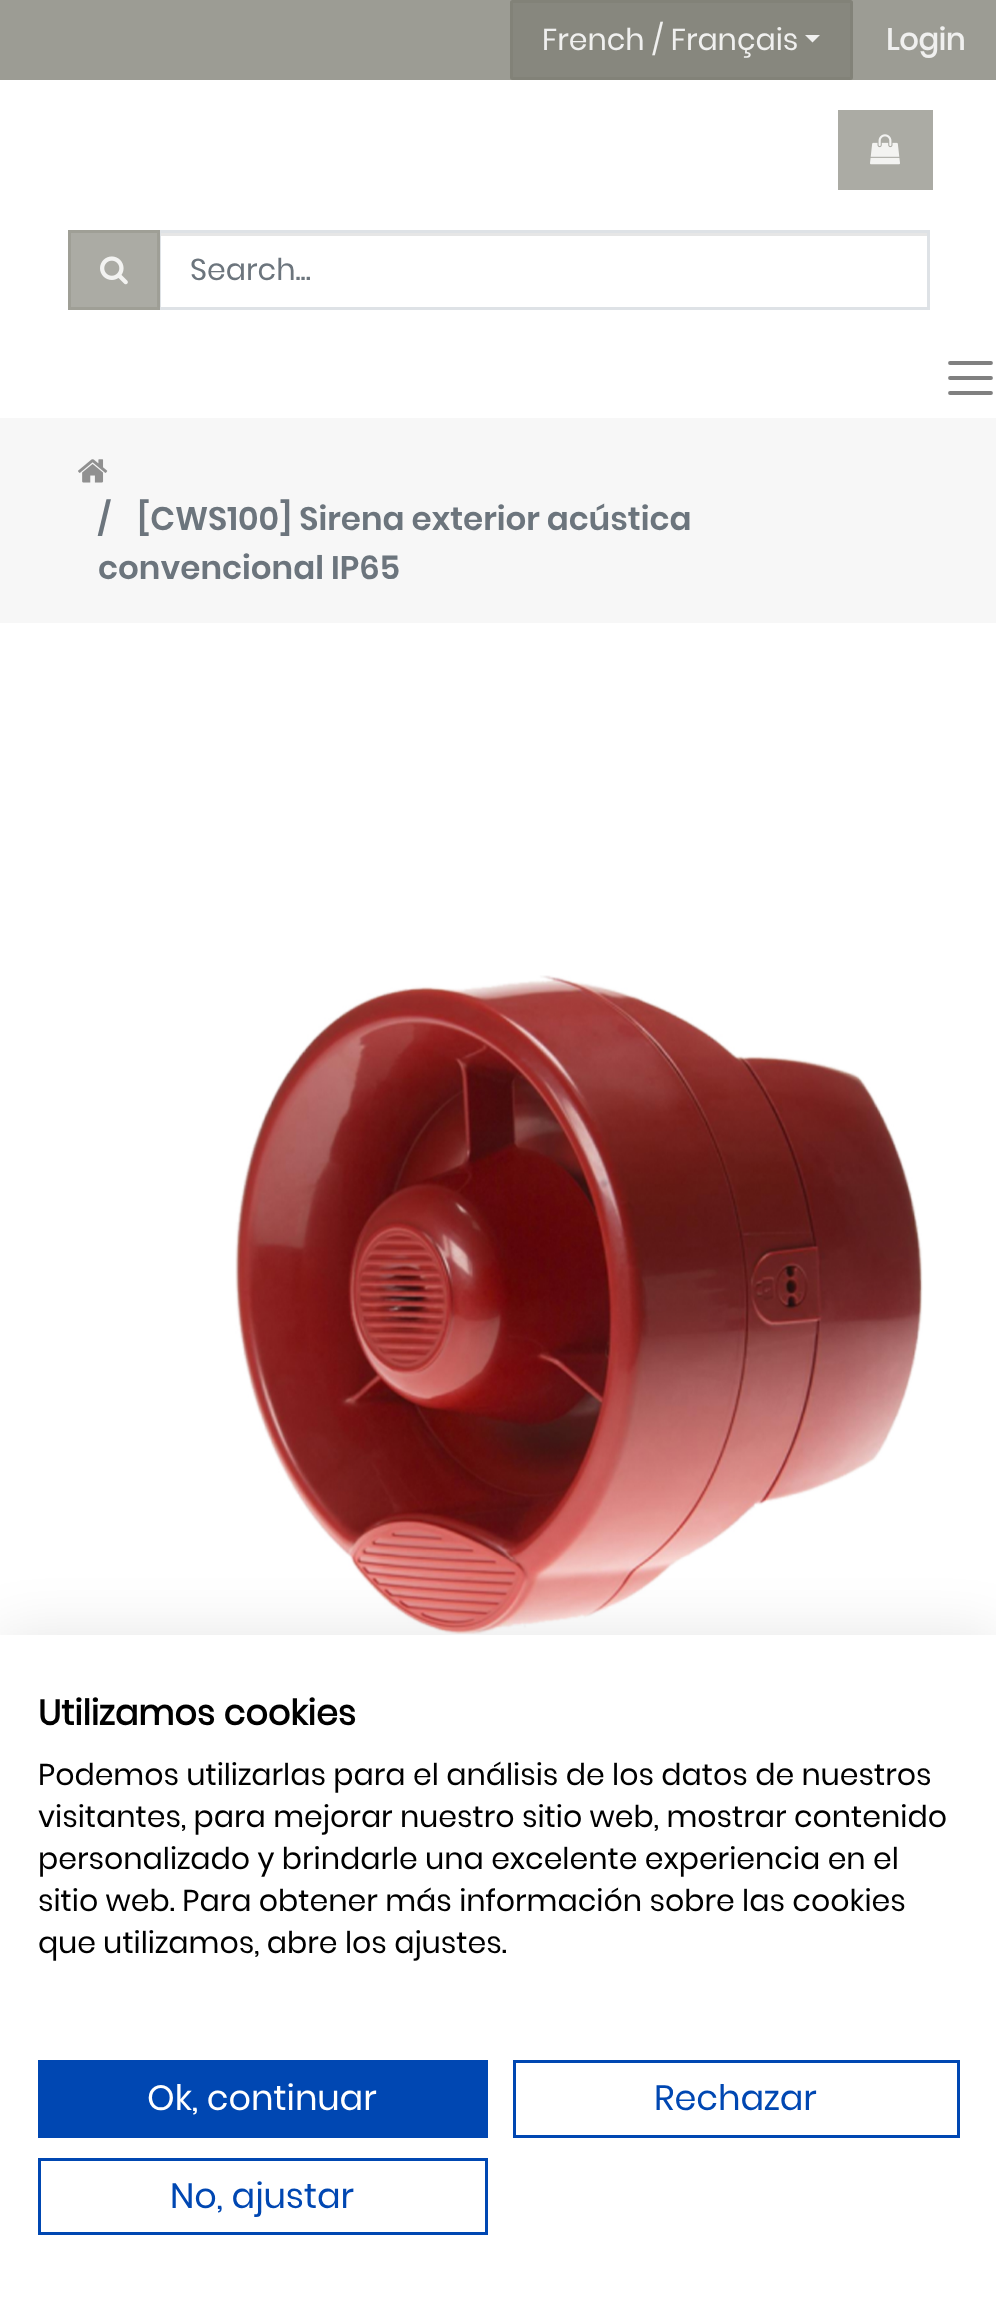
<!DOCTYPE html>
<meta charset="utf-8">
<style>body { margin: 0 } canvas { display: block }</style>
<canvas id="canvas" width="996" height="2302"></canvas>
<script type="module">
  const canvas = document.getElementById("canvas");
  const ctx = canvas.getContext("2d");
  ctx.miterLimit = 4;
  ctx.fontKerning = "normal";
  async function loadImage(src) {
    const img = new Image();
    img.src = src;
    await img.decode();
    return img;
  }

  ctx.fillStyle = "#ffffff";
  ctx.fillRect(0, 0, 996, 2302);
  ctx.fillStyle = "#9c9c94";
  ctx.fillRect(0, 0, 996, 80);
  ctx.fillStyle = "#87877e";
  ctx.beginPath();
  ctx.roundRect(511.5, 1.5, 340, 77, 1);
  ctx.fill();
  ctx.strokeStyle = "#828278";
  ctx.lineWidth = 3;
  ctx.stroke();
  ctx.font = "30px Poppins";
  ctx.fillStyle = "#f0f0ef";
  ctx.fillText("French / Français", 542, 50);
  ctx.beginPath();
  ctx.moveTo(805, 35);
  ctx.lineTo(820, 35);
  ctx.lineTo(812.5, 42.5);
  ctx.closePath();
  ctx.fill();
  ctx.font = "bold 30px Poppins";
  ctx.fillText("Login", 886, 50);
  ctx.fillStyle = "#ababa4";
  ctx.fillRect(838, 110, 95, 80);
  ctx.drawImage(await loadImage("img1.png"), 870, 134, 30, 31);
  ctx.fillStyle = "#e6e6e6";
  ctx.fillRect(160, 233, 768, 3);
  ctx.strokeStyle = "#dee2e6";
  ctx.strokeRect(159.5, 231.5, 769, 77);
  ctx.fillStyle = "rgba(156, 156, 148, 0.85)";
  ctx.fillRect(68, 230, 92, 80);
  ctx.strokeStyle = "rgba(156, 156, 148, 0.85)";
  ctx.strokeRect(69.5, 231.5, 89, 77);
  ctx.drawImage(await loadImage("img2.png"), 100, 256, 28, 29);
  ctx.font = "30px Poppins";
  ctx.fillStyle = "#6c757d";
  ctx.fillText("Search...", 190, 280);
  ctx.beginPath();
  ctx.moveTo(950, 363);
  ctx.lineTo(991, 363);
  ctx.moveTo(950, 378);
  ctx.lineTo(991, 378);
  ctx.moveTo(950, 393);
  ctx.lineTo(991, 393);
  ctx.strokeStyle = "#808080";
  ctx.lineWidth = 3.8;
  ctx.lineCap = "round";
  ctx.stroke();
  ctx.fillStyle = "#f7f7f7";
  ctx.fillRect(0, 418, 996, 205);
  ctx.drawImage(await loadImage("img3.png"), 78, 459, 30, 24);
  ctx.font = "600 32.5px Poppins";
  ctx.fillStyle = "#6c757d";
  ctx.fillText("/", 98, 530);
  ctx.fillText("[CWS100] Sirena exterior acústica", 137, 530);
  ctx.fillText("convencional IP65", 98, 579);
  ctx.drawImage(await loadImage("img4.png"), 235, 975, 688, 659);
  ctx.fillStyle = "rgba(0, 0, 0, 0.1)";
  ctx.filter = "blur(30px)";
  ctx.beginPath();
  ctx.rect(0, 1635, 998, 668);
  ctx.fill();
  ctx.filter = "none";
  ctx.fillStyle = "#ffffff";
  ctx.fillRect(0, 1635, 996, 667);
  ctx.font = "bold 35px Poppins";
  ctx.fillStyle = "#000000";
  ctx.fillText("Utilizamos cookies", 38, 1725);
  ctx.font = "30px Poppins";
  ctx.fillText("Podemos utilizarlas para el análisis de los datos de nuestros", 38, 1785);
  ctx.fillText("visitantes, para mejorar nuestro sitio web, mostrar contenido", 38, 1827);
  ctx.fillText("personalizado y brindarle una excelente experiencia en el", 38, 1869);
  ctx.fillText("sitio web. Para obtener más información sobre las cookies", 38, 1911);
  ctx.fillText("que utilizamos, abre los ajustes.", 38, 1953);
  ctx.fillStyle = "#0047b2";
  ctx.fillRect(38, 2060, 450, 78);
  ctx.font = "35px Poppins";
  ctx.fillStyle = "#ffffff";
  ctx.fillText("Ok, continuar", 147, 2110);
  ctx.strokeStyle = "#0047b2";
  ctx.lineWidth = 3;
  ctx.strokeRect(514.5, 2061.5, 444, 75);
  ctx.fillStyle = "#0047b2";
  ctx.fillText("Rechazar", 654, 2110);
  ctx.strokeRect(39.5, 2159.5, 447, 74);
  ctx.fillText("No, ajustar", 170, 2208);
</script>
